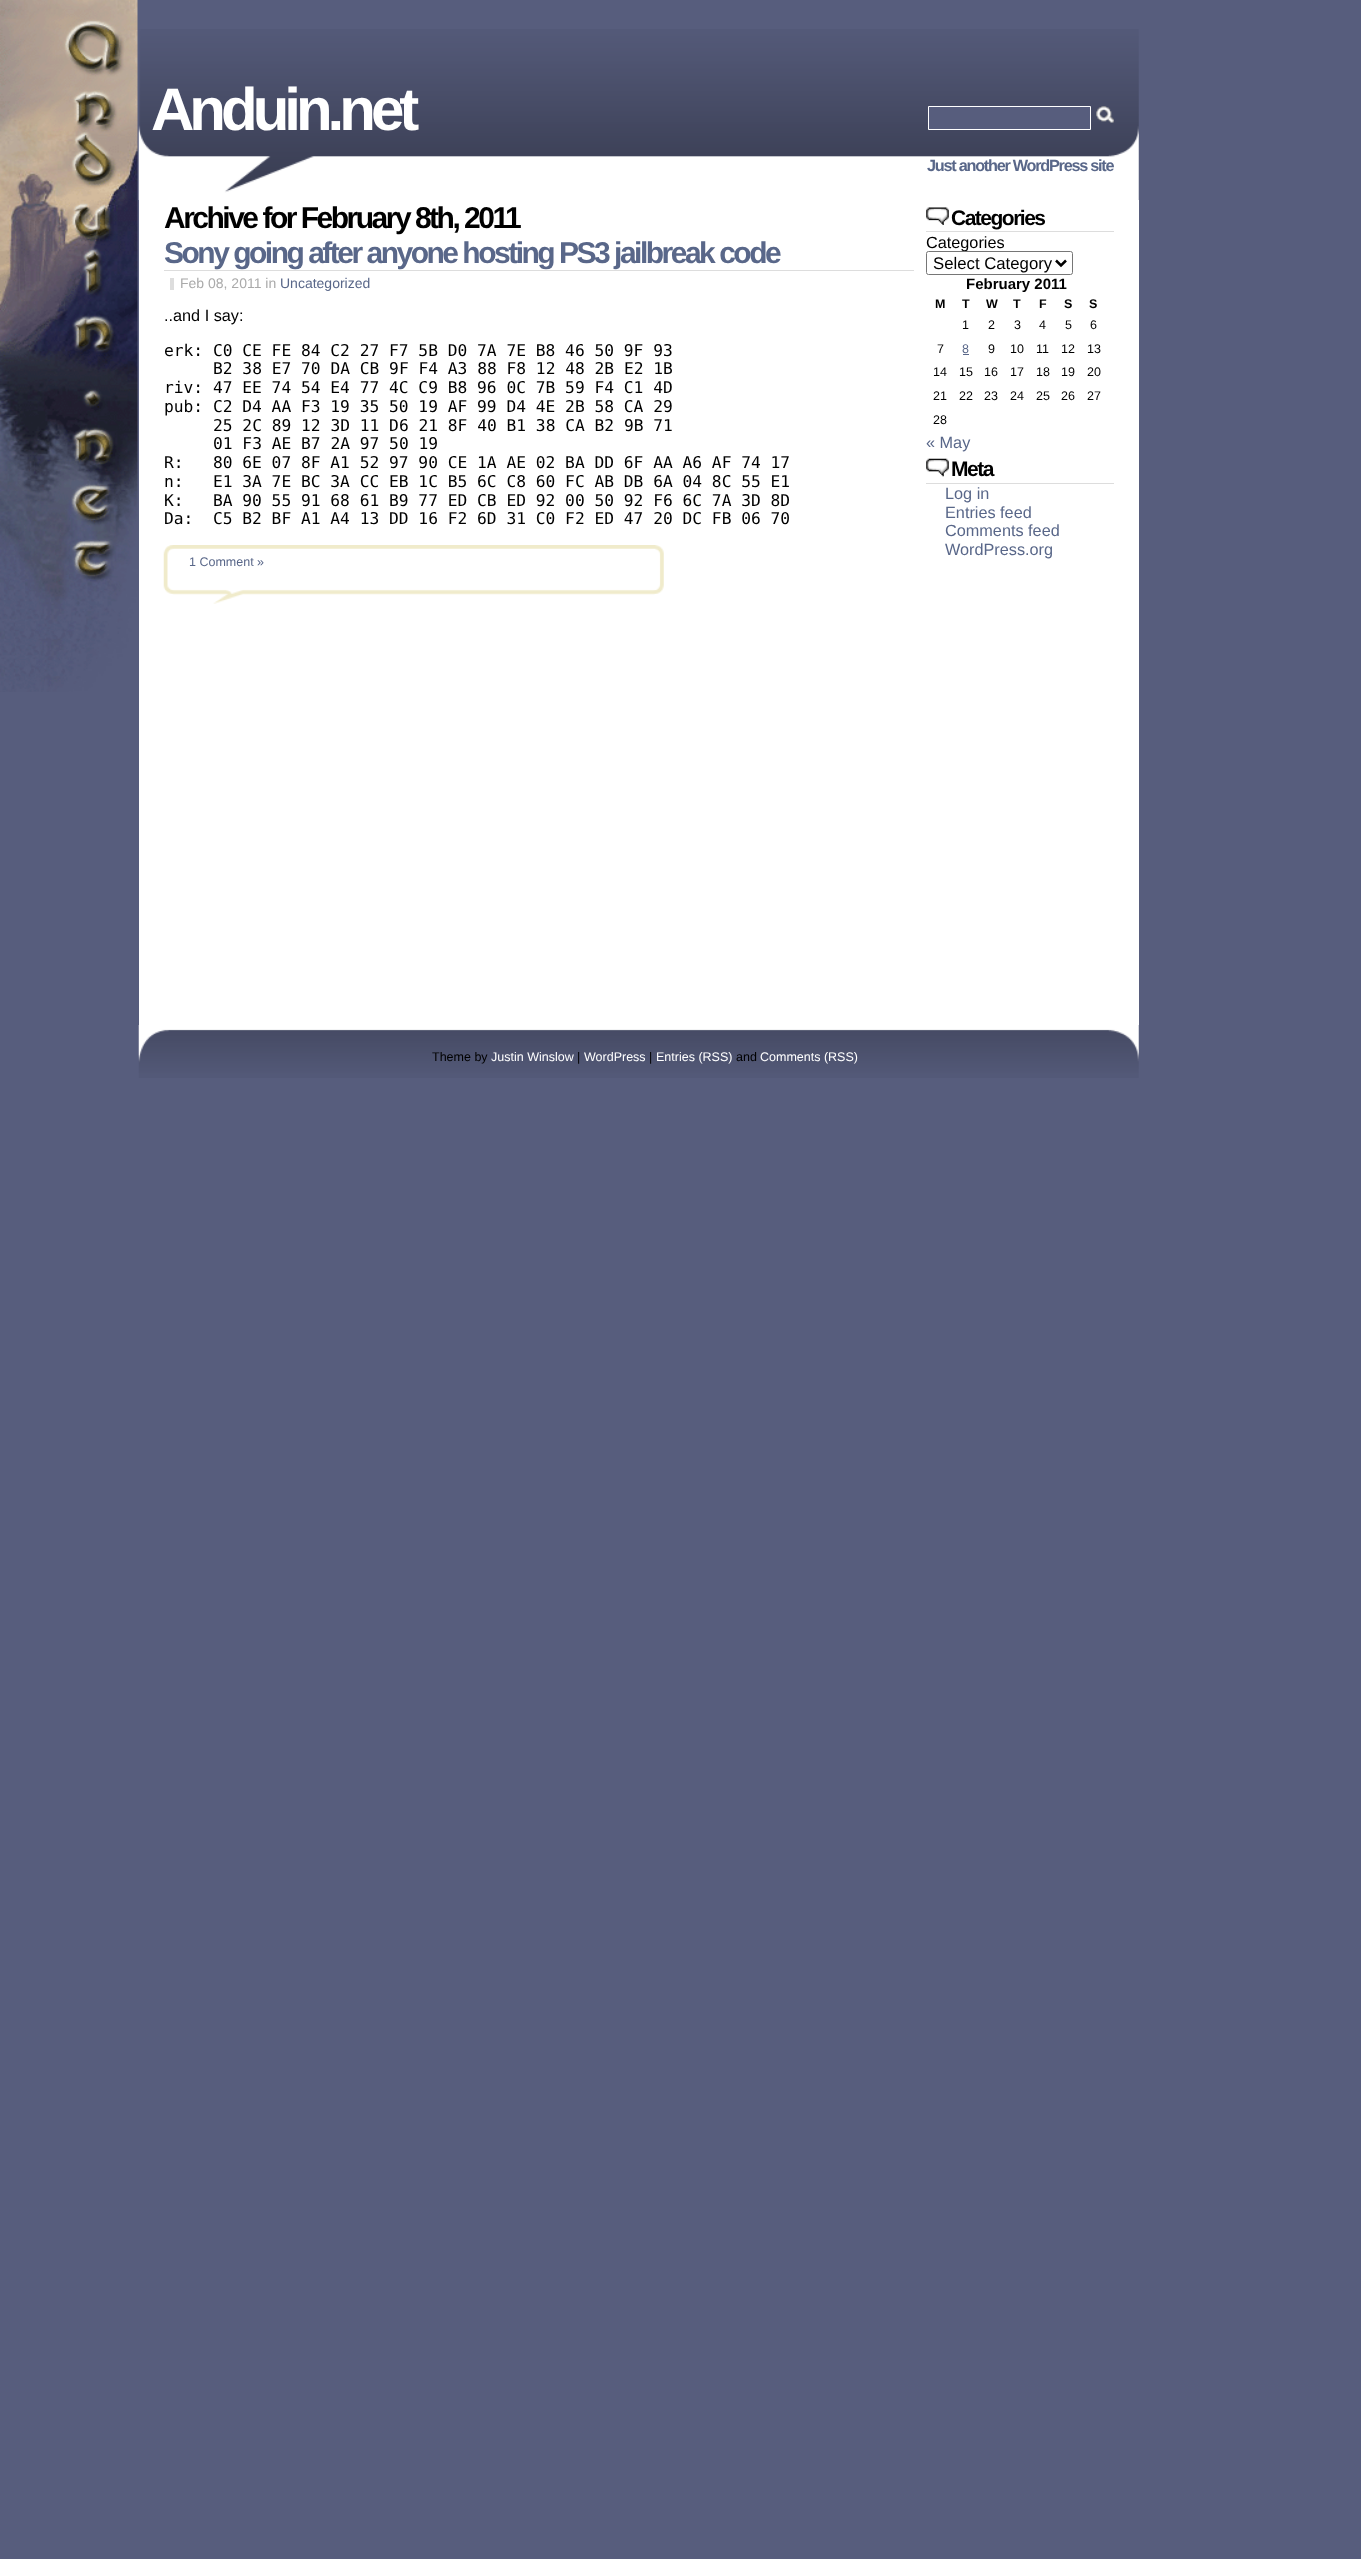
<!DOCTYPE html>
<meta charset="utf-8">
<style>body { margin: 0 } canvas { display: block }</style>
<canvas id="canvas" width="1361" height="2559"></canvas>
<script type="module">
  const canvas = document.getElementById("canvas");
  const ctx = canvas.getContext("2d");
  ctx.miterLimit = 4;
  ctx.fontKerning = "normal";
  async function loadImage(src) {
    const img = new Image();
    img.src = src;
    await img.decode();
    return img;
  }

  ctx.fillStyle = "#575d7d";
  ctx.fillRect(0, 0, 1361, 2559);
  ctx.drawImage(await loadImage("img1.png"), 0, 0, 138, 692);
  ctx.fillStyle = "#ffffff";
  ctx.fillRect(139, 200, 1000, 825);
  ctx.drawImage(await loadImage("img2.png"), 138, 29, 1001, 171);
  ctx.letterSpacing = "-5px";
  ctx.font = "bold 60px Liberation Sans";
  ctx.fillText("Anduin.net", 151, 130);
  ctx.letterSpacing = "-1.25px";
  ctx.font = "bold 16.25px Liberation Sans";
  ctx.fillStyle = "#596789";
  ctx.fillText("Just another WordPress site", 927, 171);
  ctx.fillStyle = "#575d7d";
  ctx.beginPath();
  ctx.rect(928.5, 106.5, 162, 23);
  ctx.fill();
  ctx.strokeStyle = "#ffffff";
  ctx.stroke();
  ctx.drawImage(await loadImage("img3.png"), 1096, 106, 18, 17);
  ctx.letterSpacing = "-2.5px";
  ctx.font = "bold 30px Liberation Sans";
  ctx.fillStyle = "#000000";
  ctx.fillText("Archive for February 8th, 2011", 164, 228);
  ctx.fillStyle = "#dddddd";
  ctx.fillRect(164, 270, 750, 1);
  ctx.fillStyle = "#596789";
  ctx.fillText("Sony going after anyone hosting PS3 jailbreak code", 164, 263);
  ctx.fillStyle = "#dddddd";
  ctx.fillRect(170, 278, 4, 12);
  ctx.letterSpacing = "0px";
  ctx.font = "14px Liberation Sans";
  ctx.fillStyle = "#aaaaaa";
  ctx.fillText("Feb 08, 2011 in", 180, 288);
  ctx.fillStyle = "#596789";
  ctx.fillText("Uncategorized", 280, 288);
  ctx.font = "16.25px Liberation Sans";
  ctx.fillStyle = "#000000";
  ctx.fillText("..and I say:", 164, 321);
  ctx.font = "16.25px DejaVu Sans Mono";
  ctx.fillText("erk: C0 CE FE 84 C2 27 F7 5B D0 7A 7E B8 46 50 9F 93", 164, 356);
  ctx.fillText("B2 38 E7 70 DA CB 9F F4 A3 88 F8 12 48 2B E2 1B", 213, 374);
  ctx.fillText("riv: 47 EE 74 54 E4 77 4C C9 B8 96 0C 7B 59 F4 C1 4D", 164, 393);
  ctx.fillText("pub: C2 D4 AA F3 19 35 50 19 AF 99 D4 4E 2B 58 CA 29", 164, 412);
  ctx.fillText("25 2C 89 12 3D 11 D6 21 8F 40 B1 38 CA B2 9B 71", 213, 431);
  ctx.fillText("01 F3 AE B7 2A 97 50 19", 213, 449);
  ctx.fillText("R:   80 6E 07 8F A1 52 97 90 CE 1A AE 02 BA DD 6F AA A6 AF 74 17", 164, 468);
  ctx.fillText("n:   E1 3A 7E BC 3A CC EB 1C B5 6C C8 60 FC AB DB 6A 04 8C 55 E1", 164, 487);
  ctx.fillText("K:   BA 90 55 91 68 61 B9 77 ED CB ED 92 00 50 92 F6 6C 7A 3D 8D", 164, 506);
  ctx.fillText("Da:  C5 B2 BF A1 A4 13 DD 16 F2 6D 31 C0 F2 ED 47 20 DC FB 06 70", 164, 524);
  ctx.drawImage(await loadImage("img4.png"), 163, 545, 501, 59);
  ctx.font = "12.5px Liberation Sans";
  ctx.fillStyle = "#596789";
  ctx.fillText("1 Comment »", 189, 566);
  ctx.drawImage(await loadImage("img5.png"), 926, 207, 23, 18);
  ctx.fillStyle = "#dddddd";
  ctx.fillRect(926, 231, 188, 1);
  ctx.letterSpacing = "-1.5px";
  ctx.font = "bold 21px Liberation Sans";
  ctx.fillStyle = "#000000";
  ctx.fillText("Categories", 951, 225);
  ctx.letterSpacing = "0px";
  ctx.font = "16.25px Liberation Sans";
  ctx.fillText("Categories", 926, 248);
  ctx.fillStyle = "#ffffff";
  ctx.beginPath();
  ctx.roundRect(926.5, 251.5, 146, 23, 2);
  ctx.fill();
  ctx.strokeStyle = "#767676";
  ctx.stroke();
  ctx.beginPath();
  ctx.moveTo(1056, 260.5);
  ctx.lineTo(1061, 265.5);
  ctx.lineTo(1066, 260.5);
  ctx.strokeStyle = "#000000";
  ctx.lineWidth = 2.5;
  ctx.stroke();
  ctx.font = "16.75px Liberation Sans";
  ctx.fillStyle = "#000000";
  ctx.fillText("Select Category", 933, 269);
  ctx.font = "bold 15px Liberation Sans";
  ctx.fillText("February 2011", 966, 289);
  ctx.font = "bold 12.5px Liberation Sans";
  ctx.fillText("M", 935, 308);
  ctx.fillText("T", 962, 308);
  ctx.fillText("W", 986, 308);
  ctx.fillText("T", 1013, 308);
  ctx.fillText("F", 1039, 308);
  ctx.fillText("S", 1064, 308);
  ctx.fillText("S", 1089, 308);
  ctx.font = "12.5px Liberation Sans";
  ctx.fillText("1", 962, 329);
  ctx.fillText("2", 988, 329);
  ctx.fillText("3", 1014, 329);
  ctx.fillText("4", 1039, 329);
  ctx.fillText("5", 1065, 329);
  ctx.fillText("6", 1090, 329);
  ctx.fillText("7", 937, 353);
  ctx.fillStyle = "#596789";
  ctx.fillText("8", 962, 353);
  ctx.fillRect(963, 354, 6, 1);
  ctx.fillStyle = "#000000";
  ctx.fillText("9", 988, 353);
  ctx.fillText("10", 1010, 353);
  ctx.fillText("11", 1036, 353);
  ctx.fillText("12", 1061, 353);
  ctx.fillText("13", 1087, 353);
  ctx.fillText("14", 933, 376);
  ctx.fillText("15", 959, 376);
  ctx.fillText("16", 984, 376);
  ctx.fillText("17", 1010, 376);
  ctx.fillText("18", 1036, 376);
  ctx.fillText("19", 1061, 376);
  ctx.fillText("20", 1087, 376);
  ctx.fillText("21", 933, 400);
  ctx.fillText("22", 959, 400);
  ctx.fillText("23", 984, 400);
  ctx.fillText("24", 1010, 400);
  ctx.fillText("25", 1036, 400);
  ctx.fillText("26", 1061, 400);
  ctx.fillText("27", 1087, 400);
  ctx.fillText("28", 933, 424);
  ctx.font = "16.25px Liberation Sans";
  ctx.fillStyle = "#596789";
  ctx.fillText("« May", 926, 448);
  ctx.drawImage(await loadImage("img6.png"), 926, 458, 23, 19);
  ctx.fillStyle = "#dddddd";
  ctx.fillRect(926, 483, 188, 1);
  ctx.letterSpacing = "-1.5px";
  ctx.font = "bold 21px Liberation Sans";
  ctx.fillStyle = "#000000";
  ctx.fillText("Meta", 951, 476);
  ctx.letterSpacing = "0px";
  ctx.font = "16.25px Liberation Sans";
  ctx.fillStyle = "#596789";
  ctx.fillText("Log in", 945, 499);
  ctx.fillText("Entries feed", 945, 518);
  ctx.fillText("Comments feed", 945, 536);
  ctx.fillText("WordPress.org", 945, 555);
  ctx.drawImage(await loadImage("img7.png"), 138, 1025, 1001, 53);
  ctx.font = "12.5px Liberation Sans";
  ctx.fillStyle = "#000000";
  ctx.fillText("Theme by", 432, 1061);
  ctx.fillStyle = "#ffffff";
  ctx.fillText("Justin Winslow", 491, 1061);
  ctx.fillStyle = "#000000";
  ctx.fillText("|", 577, 1061);
  ctx.fillStyle = "#ffffff";
  ctx.fillText("WordPress", 584, 1061);
  ctx.fillStyle = "#000000";
  ctx.fillText("|", 649, 1061);
  ctx.fillStyle = "#ffffff";
  ctx.fillText("Entries (RSS)", 656, 1061);
  ctx.fillStyle = "#000000";
  ctx.fillText("and", 736, 1061);
  ctx.fillStyle = "#ffffff";
  ctx.fillText("Comments (RSS)", 760, 1061);
</script>
